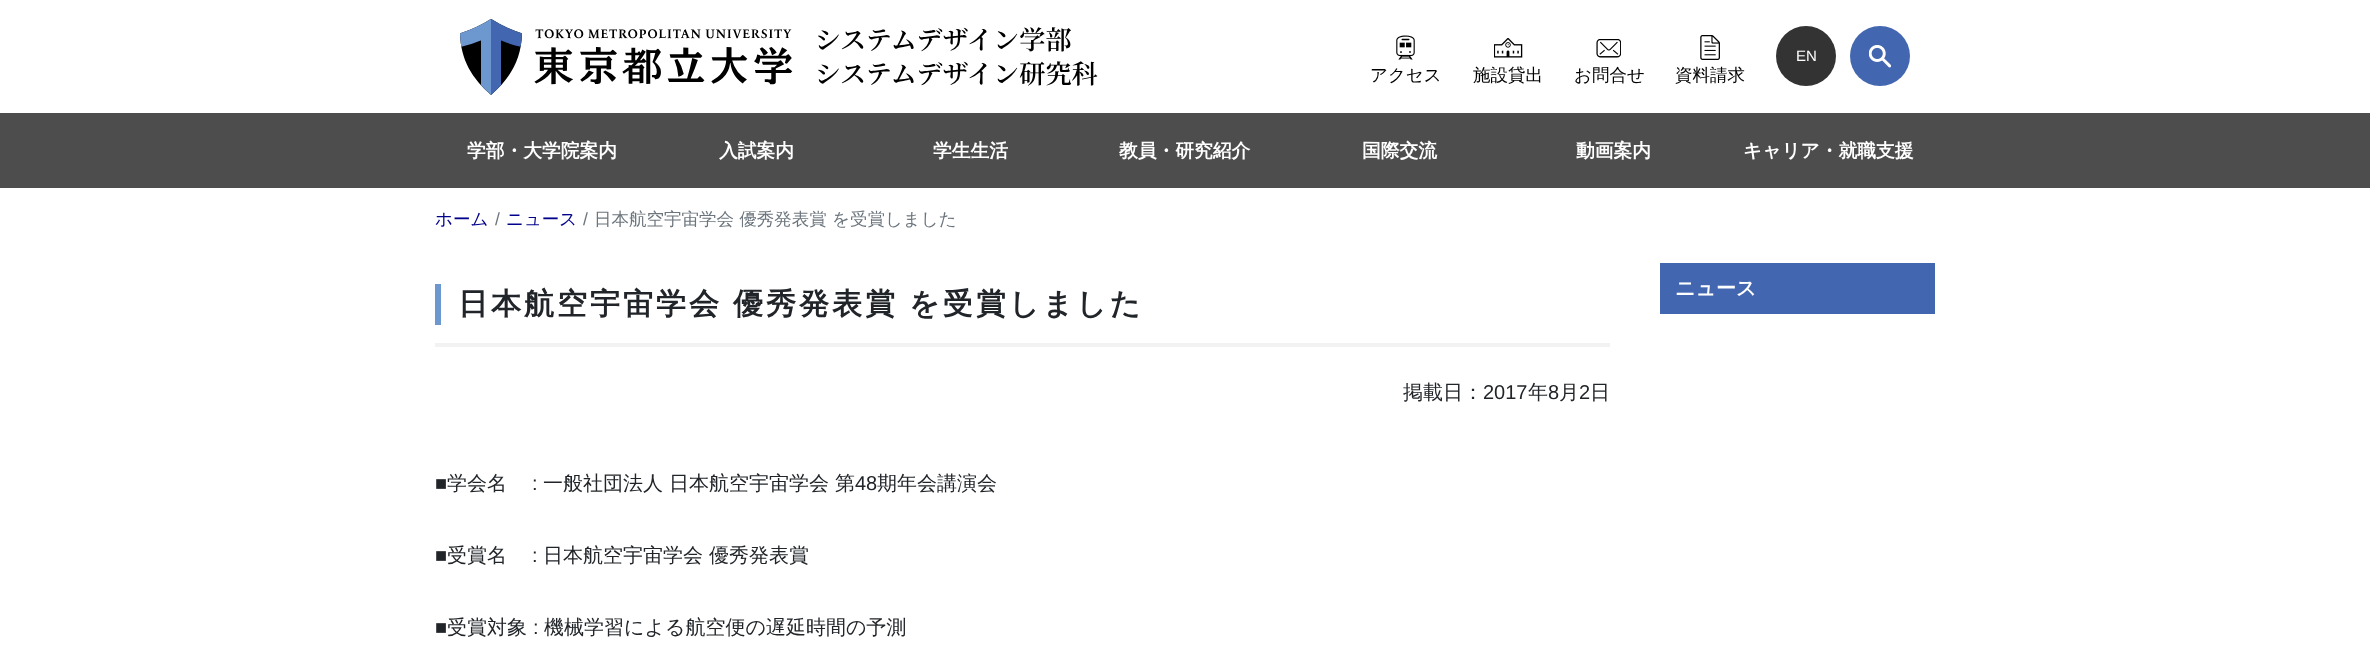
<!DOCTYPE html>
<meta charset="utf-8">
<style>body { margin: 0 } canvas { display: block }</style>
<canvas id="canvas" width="2370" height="654"></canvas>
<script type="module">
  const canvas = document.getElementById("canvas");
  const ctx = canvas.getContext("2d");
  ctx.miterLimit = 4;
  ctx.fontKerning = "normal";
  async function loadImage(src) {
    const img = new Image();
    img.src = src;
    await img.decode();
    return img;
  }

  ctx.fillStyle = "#ffffff";
  ctx.fillRect(0, 0, 2370, 654);
  ctx.drawImage(await loadImage("img1.png"), 460, 19, 638, 76);
  ctx.fillStyle = "#333333";
  ctx.beginPath();
  ctx.arc(1806, 56, 30, 0, Math.PI * 2);
  ctx.fill();
  ctx.font = "15px Liberation Sans";
  ctx.fillStyle = "#ffffff";
  ctx.fillText("EN", 1796, 61);
  ctx.fillStyle = "#4366b0";
  ctx.beginPath();
  ctx.arc(1880, 56, 30, 0, Math.PI * 2);
  ctx.fill();
  ctx.drawImage(await loadImage("img2.png"), 1869, 45, 22, 23);
  ctx.drawImage(await loadImage("img3.png"), 1396, 35, 19, 25);
  ctx.font = "500 17.5px WenQuanYi Zen Hei";
  ctx.fillStyle = "#000000";
  ctx.fillText("アクセス", 1370, 81);
  ctx.drawImage(await loadImage("img4.png"), 1494, 38, 29, 20);
  ctx.fillText("施設貸出", 1473, 81);
  ctx.drawImage(await loadImage("img5.png"), 1596, 39, 25, 19);
  ctx.fillText("お問合せ", 1574, 81);
  ctx.drawImage(await loadImage("img6.png"), 1700, 35, 20, 25);
  ctx.fillText("資料請求", 1675, 81);
  ctx.fillStyle = "#4d4d4d";
  ctx.fillRect(0, 113, 2370, 75);
  ctx.font = "bold 18.75px WenQuanYi Zen Hei";
  ctx.fillStyle = "#ffffff";
  ctx.fillText("学部・大学院案内", 467, 157);
  ctx.fillText("入試案内", 719, 157);
  ctx.fillText("学生生活", 933, 157);
  ctx.fillText("教員・研究紹介", 1119, 157);
  ctx.fillText("国際交流", 1362, 157);
  ctx.fillText("動画案内", 1576, 157);
  ctx.fillText("キャリア・就職支援", 1743, 157);
  ctx.font = "500 17.5px WenQuanYi Zen Hei";
  ctx.fillStyle = "#00008b";
  ctx.fillText("ホーム", 435, 225);
  ctx.font = "17.5px Liberation Sans";
  ctx.fillStyle = "#6c757d";
  ctx.fillText("/", 495, 225);
  ctx.font = "500 17.5px WenQuanYi Zen Hei";
  ctx.fillStyle = "#00008b";
  ctx.fillText("ニュース", 506, 225);
  ctx.font = "17.5px Liberation Sans";
  ctx.fillStyle = "#6c757d";
  ctx.fillText("/", 583, 225);
  ctx.font = "500 17.5px WenQuanYi Zen Hei";
  ctx.fillText("日本航空宇宙学会 優秀発表賞 を受賞しました", 594, 225);
  ctx.fillStyle = "#f2f2f2";
  ctx.fillRect(435, 343, 1175, 4);
  ctx.fillStyle = "#6d97cf";
  ctx.fillRect(435, 284, 6, 41);
  ctx.letterSpacing = "3px";
  ctx.wordSpacing = "-1px";
  ctx.font = "bold 30px WenQuanYi Zen Hei";
  ctx.fillStyle = "#212529";
  ctx.fillText("日本航空宇宙学会 優秀発表賞 を受賞しました", 458, 314);
  ctx.letterSpacing = "0px";
  ctx.wordSpacing = "0px";
  ctx.font = "500 20px WenQuanYi Zen Hei";
  ctx.fillText("掲載日：", 1403, 399);
  ctx.font = "20px Liberation Sans";
  ctx.fillText("2017", 1483, 399);
  ctx.font = "500 20px WenQuanYi Zen Hei";
  ctx.fillText("年", 1528, 399);
  ctx.font = "20px Liberation Sans";
  ctx.fillText("8", 1548, 399);
  ctx.font = "500 20px WenQuanYi Zen Hei";
  ctx.fillText("月", 1559, 399);
  ctx.font = "20px Liberation Sans";
  ctx.fillText("2", 1579, 399);
  ctx.font = "500 20px WenQuanYi Zen Hei";
  ctx.fillText("日", 1590, 399);
  ctx.font = "20px Liberation Sans";
  ctx.fillText("■", 435, 490);
  ctx.font = "500 20px WenQuanYi Zen Hei";
  ctx.fillText("学会名", 447, 490);
  ctx.font = "20px Liberation Sans";
  ctx.fillText(":", 532, 490);
  ctx.font = "500 20px WenQuanYi Zen Hei";
  ctx.fillText("一般社団法人 日本航空宇宙学会 第", 543, 490);
  ctx.font = "20px Liberation Sans";
  ctx.fillText("48", 855, 490);
  ctx.font = "500 20px WenQuanYi Zen Hei";
  ctx.fillText("期年会講演会", 877, 490);
  ctx.font = "20px Liberation Sans";
  ctx.fillText("■", 435, 562);
  ctx.font = "500 20px WenQuanYi Zen Hei";
  ctx.fillText("受賞名", 447, 562);
  ctx.font = "20px Liberation Sans";
  ctx.fillText(":", 532, 562);
  ctx.font = "500 20px WenQuanYi Zen Hei";
  ctx.fillText("日本航空宇宙学会 優秀発表賞", 543, 562);
  ctx.font = "20px Liberation Sans";
  ctx.fillText("■", 435, 634);
  ctx.font = "500 20px WenQuanYi Zen Hei";
  ctx.fillText("受賞対象", 447, 634);
  ctx.font = "20px Liberation Sans";
  ctx.fillText(":", 533, 634);
  ctx.font = "500 20px WenQuanYi Zen Hei";
  ctx.fillText("機械学習による航空便の遅延時間の予測", 544, 634);
  ctx.fillStyle = "#4366b0";
  ctx.fillRect(1660, 263, 275, 51);
  ctx.font = "bold 20px WenQuanYi Zen Hei";
  ctx.fillStyle = "#ffffff";
  ctx.fillText("ニュース", 1675, 295);
</script>
